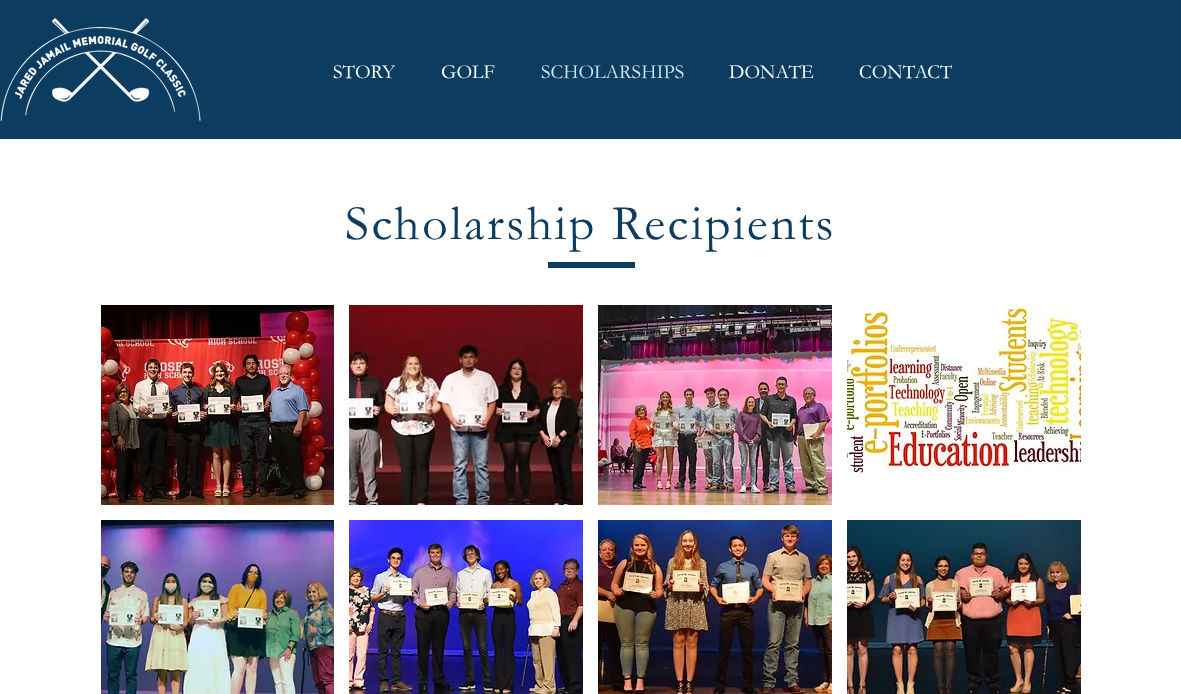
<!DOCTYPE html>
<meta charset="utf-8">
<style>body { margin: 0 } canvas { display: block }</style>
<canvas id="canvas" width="1181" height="694"></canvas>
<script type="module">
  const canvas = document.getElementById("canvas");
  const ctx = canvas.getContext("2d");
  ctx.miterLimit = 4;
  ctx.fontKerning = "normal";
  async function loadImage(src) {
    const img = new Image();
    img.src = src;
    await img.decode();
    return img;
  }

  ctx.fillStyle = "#ffffff";
  ctx.fillRect(0, 0, 1181, 694);
  ctx.fillStyle = "#0c3c60";
  ctx.fillRect(0, 0, 1181, 139);
  ctx.drawImage(await loadImage("img1.png"), 0, 18, 201, 103);
  ctx.font = "20px Garamond";
  ctx.fillStyle = "#ffffff";
  ctx.fillText("STORY", 333, 78);
  ctx.fillText("GOLF", 441, 78);
  ctx.fillStyle = "#d1e0eb";
  ctx.fillText("SCHOLARSHIPS", 541, 78);
  ctx.fillStyle = "#ffffff";
  ctx.fillText("DONATE", 729, 78);
  ctx.fillText("CONTACT", 859, 78);
  ctx.letterSpacing = "2.5px";
  ctx.font = "50px Garamond";
  ctx.fillStyle = "#0c3c60";
  ctx.fillText("Scholarship Recipients", 345, 239);
  ctx.fillRect(548, 262, 87, 6);
  ctx.drawImage(await loadImage("img2.png"), 101, 305, 233, 200);
  ctx.drawImage(await loadImage("img3.png"), 349, 305, 234, 200);
  ctx.drawImage(await loadImage("img4.png"), 598, 305, 234, 200);
  ctx.drawImage(await loadImage("img5.png"), 847, 305, 234, 169);
  ctx.drawImage(await loadImage("img6.png"), 101, 520, 233, 174);
  ctx.drawImage(await loadImage("img7.png"), 349, 520, 234, 174);
  ctx.drawImage(await loadImage("img8.png"), 598, 520, 234, 174);
  ctx.drawImage(await loadImage("img9.png"), 847, 520, 234, 174);
</script>
